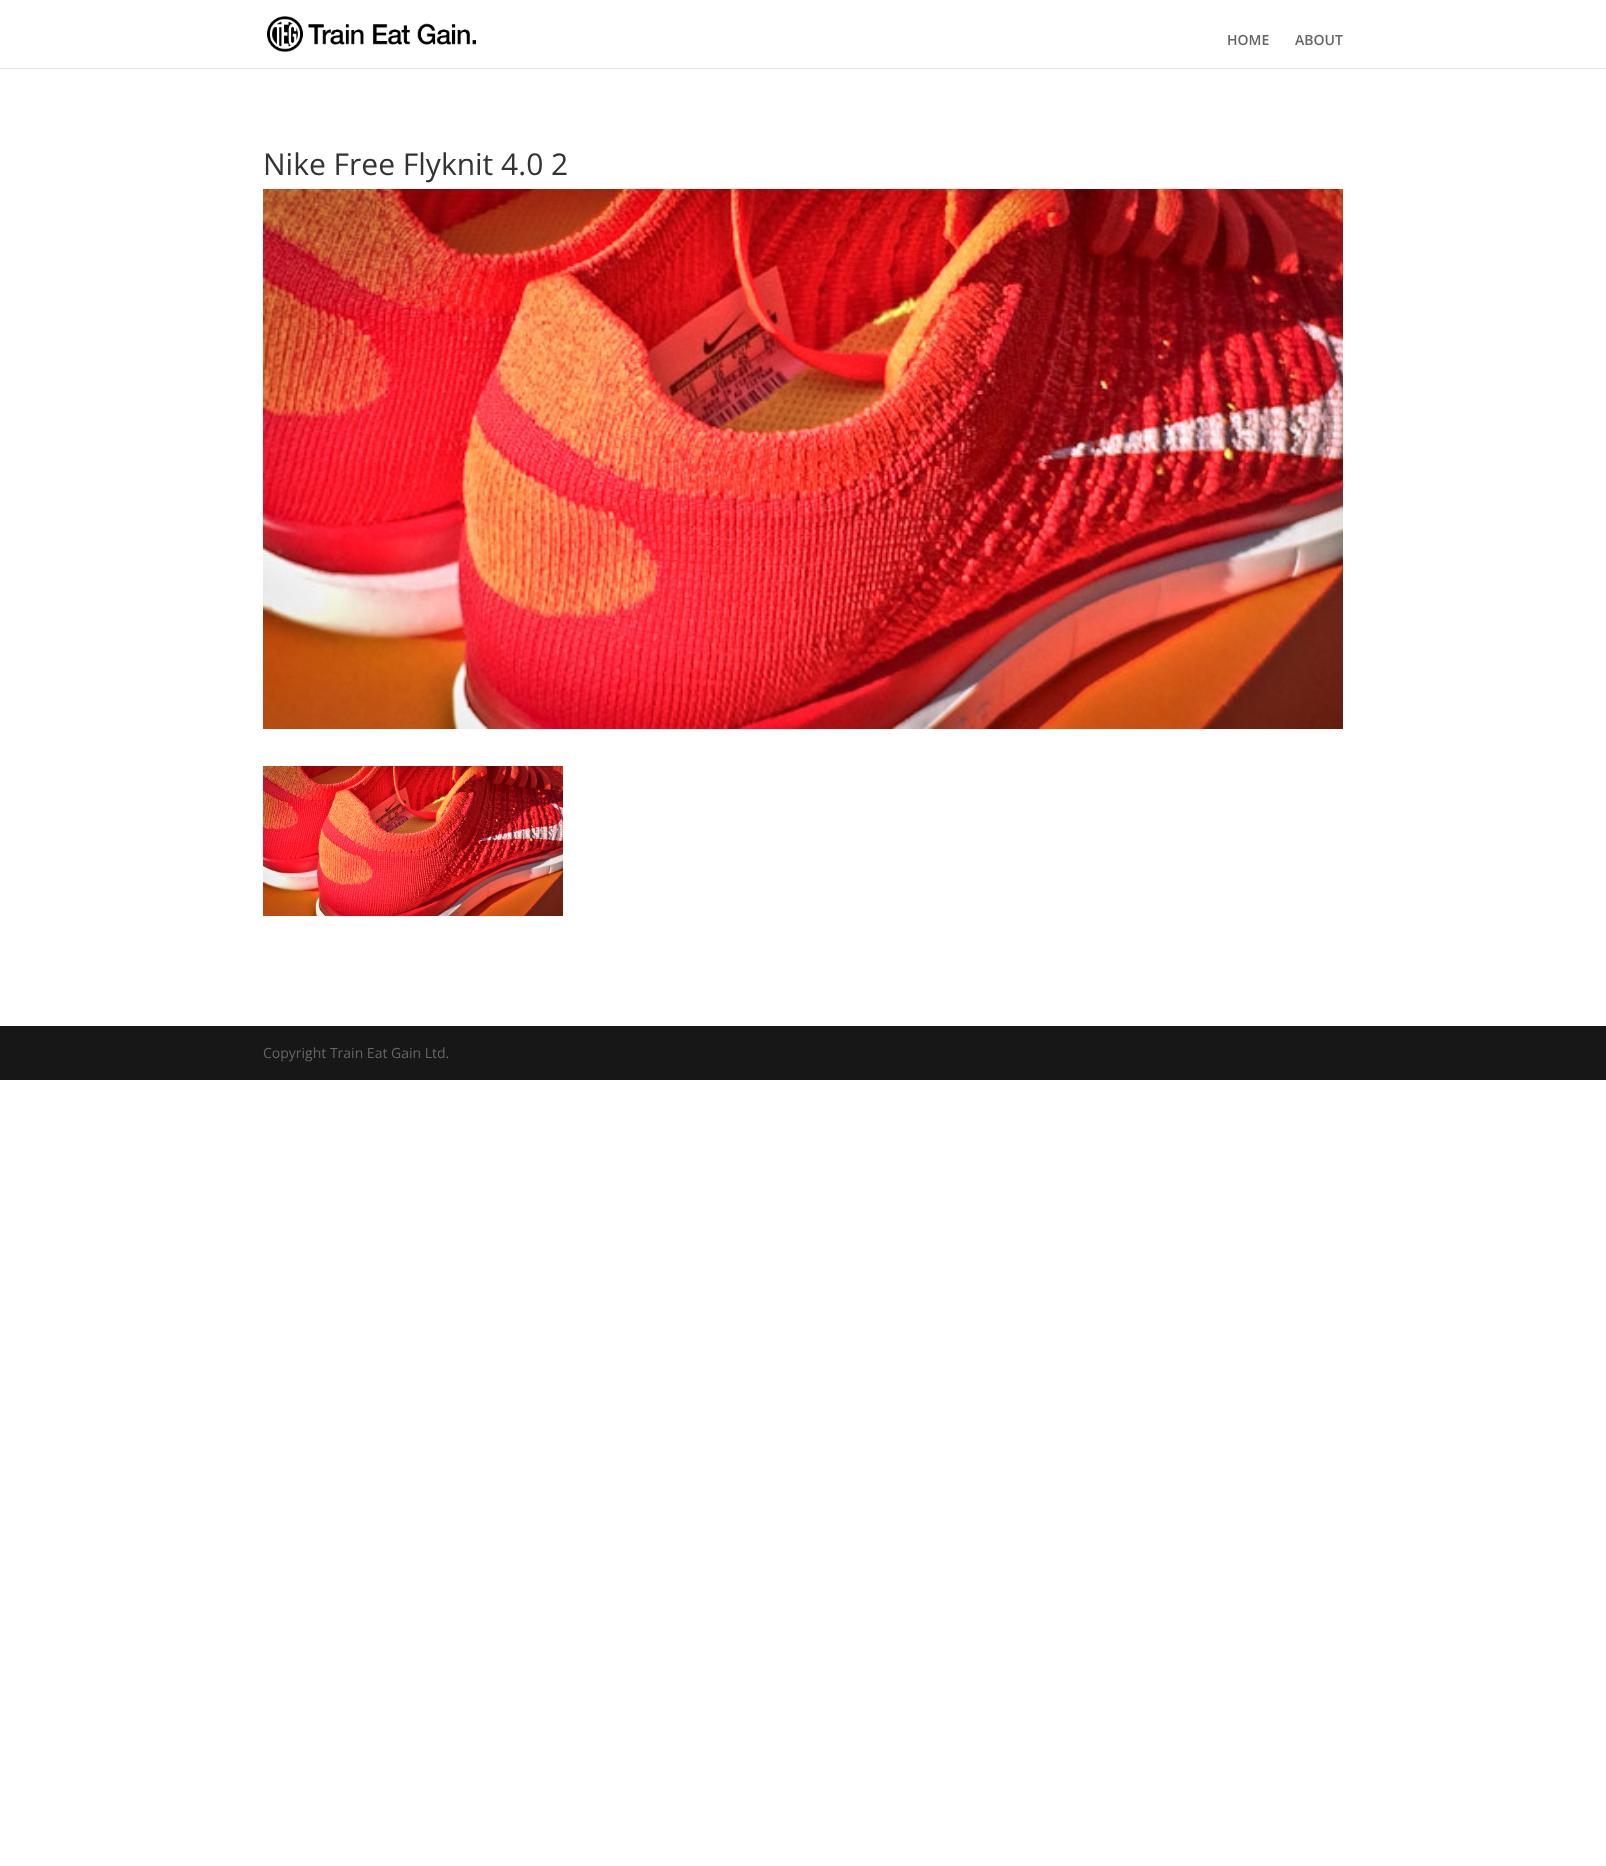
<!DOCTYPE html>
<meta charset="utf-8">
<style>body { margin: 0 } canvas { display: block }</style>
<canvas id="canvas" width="1606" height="1866"></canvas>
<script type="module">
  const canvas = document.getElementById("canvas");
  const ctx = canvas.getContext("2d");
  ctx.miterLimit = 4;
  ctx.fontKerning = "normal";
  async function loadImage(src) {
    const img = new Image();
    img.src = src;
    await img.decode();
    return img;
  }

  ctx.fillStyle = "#ffffff";
  ctx.fillRect(0, 0, 1606, 1866);
  ctx.fillStyle = "#e6e6e6";
  ctx.fillRect(0, 68, 1606, 1);
  ctx.drawImage(await loadImage("img1.png"), 267, 16, 209, 36);
  ctx.font = "600 14px Open Sans";
  ctx.fillStyle = "#666666";
  ctx.fillText("HOME", 1227, 45);
  ctx.fillText("ABOUT", 1295, 45);
  ctx.font = "30px Open Sans";
  ctx.fillStyle = "#333333";
  ctx.fillText("Nike Free Flyknit 4.0 2", 263, 175);
  ctx.drawImage(await loadImage("img2.png"), 263, 189, 1080, 540);
  ctx.drawImage(await loadImage("img3.png"), 263, 766, 300, 150);
  ctx.fillStyle = "#171717";
  ctx.fillRect(0, 1026, 1606, 54);
  ctx.font = "14px Open Sans";
  ctx.fillStyle = "#666666";
  ctx.fillText("Copyright Train Eat Gain Ltd.", 263, 1058);
</script>
